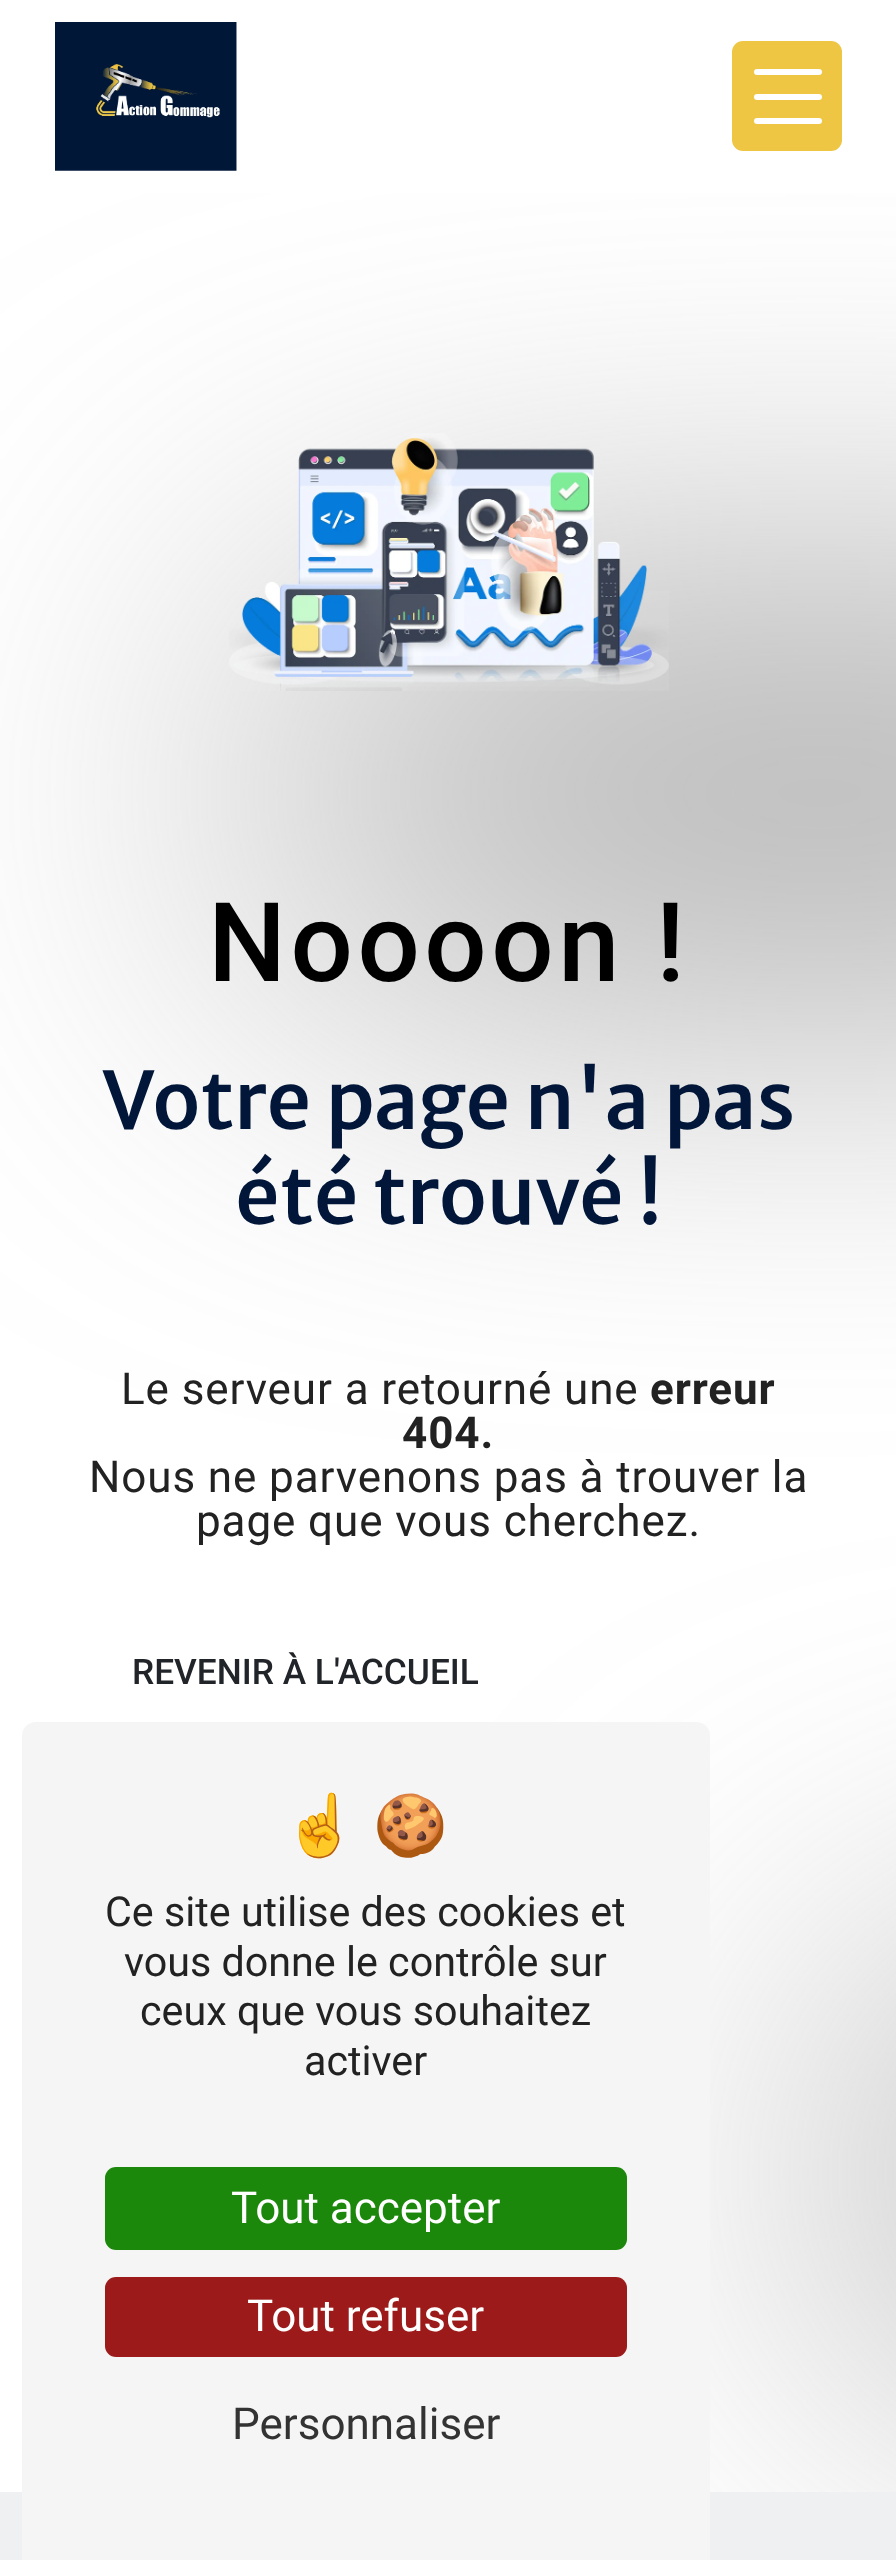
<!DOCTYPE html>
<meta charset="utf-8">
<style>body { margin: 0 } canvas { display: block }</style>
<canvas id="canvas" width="896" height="2560"></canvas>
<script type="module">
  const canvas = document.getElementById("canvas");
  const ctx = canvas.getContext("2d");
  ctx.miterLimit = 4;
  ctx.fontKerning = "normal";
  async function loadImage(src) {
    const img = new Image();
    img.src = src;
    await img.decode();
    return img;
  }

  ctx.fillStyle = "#ffffff";
  ctx.fillRect(0, 0, 896, 2560);
  ctx.save();
  ctx.beginPath();
  ctx.rect(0, 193, 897, 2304);
  ctx.clip();
  ctx.fillStyle = "#808080";
  ctx.filter = "blur(220px)";
  ctx.beginPath();
  ctx.roundRect(270, 655, 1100, 275, 137.5);
  ctx.fill();
  ctx.filter = "none";
  ctx.restore();
  ctx.drawImage(await loadImage("img1.png"), 55, 22, 182, 149);
  ctx.fillStyle = "#eec643";
  ctx.beginPath();
  ctx.roundRect(732, 41, 110, 110, 11);
  ctx.fill();
  ctx.fillStyle = "#ffffff";
  ctx.beginPath();
  ctx.roundRect(754, 94, 68, 6, 3);
  ctx.fill();
  ctx.beginPath();
  ctx.roundRect(754, 69, 68, 6, 3);
  ctx.fill();
  ctx.beginPath();
  ctx.roundRect(754, 118, 68, 6, 3);
  ctx.fill();
  ctx.fillStyle = "#808080";
  ctx.filter = "blur(220px)";
  ctx.beginPath();
  ctx.roundRect(853, 2035, 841, 275, 137.5);
  ctx.fill();
  ctx.filter = "none";
  ctx.drawImage(await loadImage("img2.png"), 229, 433, 440, 258);
  ctx.letterSpacing = "4.5px";
  ctx.font = "500 110px Roboto";
  ctx.fillStyle = "#000000";
  ctx.fillText("Noooon !", 208, 981);
  ctx.letterSpacing = "0px";
  ctx.font = "500 79.25px Merriweather Sans";
  ctx.fillStyle = "#011638";
  ctx.fillText("Votre page n'a pas", 102, 1129);
  ctx.fillText("été trouvé !", 235, 1224);
  ctx.letterSpacing = "0.9px";
  ctx.font = "44px Roboto";
  ctx.fillStyle = "#222222";
  ctx.fillText("Le serveur a retourné une", 121, 1404);
  ctx.font = "bold 44px Roboto";
  ctx.fillText("erreur", 650, 1404);
  ctx.fillText("404.", 402, 1448);
  ctx.font = "44px Roboto";
  ctx.fillText("Nous ne parvenons pas à trouver la", 89, 1492);
  ctx.fillText("page que vous cherchez.", 196, 1536);
  ctx.letterSpacing = "0px";
  ctx.font = "500 35.25px Roboto";
  ctx.fillStyle = "#212529";
  ctx.fillText("REVENIR À L'ACCUEIL", 132, 1684);
  ctx.fillStyle = "#eef0f2";
  ctx.fillRect(0, 2492, 896, 68);
  ctx.fillStyle = "#f5f5f5";
  ctx.beginPath();
  ctx.roundRect(22, 1722, 688, 838, [14, 14, 0, 0]);
  ctx.fill();
  ctx.font = "60px Noto Color Emoji";
  ctx.fillStyle = "#222222";
  ctx.fillText("☝", 283, 1846);
  ctx.fillText("🍪", 373, 1846);
  ctx.font = "41.25px Roboto";
  ctx.fillText("Ce site utilise des cookies et", 105, 1926);
  ctx.fillText("vous donne le contrôle sur", 124, 1976);
  ctx.fillText("ceux que vous souhaitez", 140, 2025);
  ctx.fillText("activer", 304, 2075);
  ctx.fillStyle = "#1b870b";
  ctx.beginPath();
  ctx.roundRect(105, 2167, 522, 83, 11);
  ctx.fill();
  ctx.font = "44px Roboto";
  ctx.fillStyle = "#ffffff";
  ctx.fillText("Tout accepter", 231, 2223);
  ctx.fillStyle = "#9c1a1a";
  ctx.beginPath();
  ctx.roundRect(105, 2277, 522, 80, 11);
  ctx.fill();
  ctx.fillStyle = "#ffffff";
  ctx.fillText("Tout refuser", 247, 2331);
  ctx.fillStyle = "#333333";
  ctx.fillText("Personnaliser", 232, 2439);
</script>
